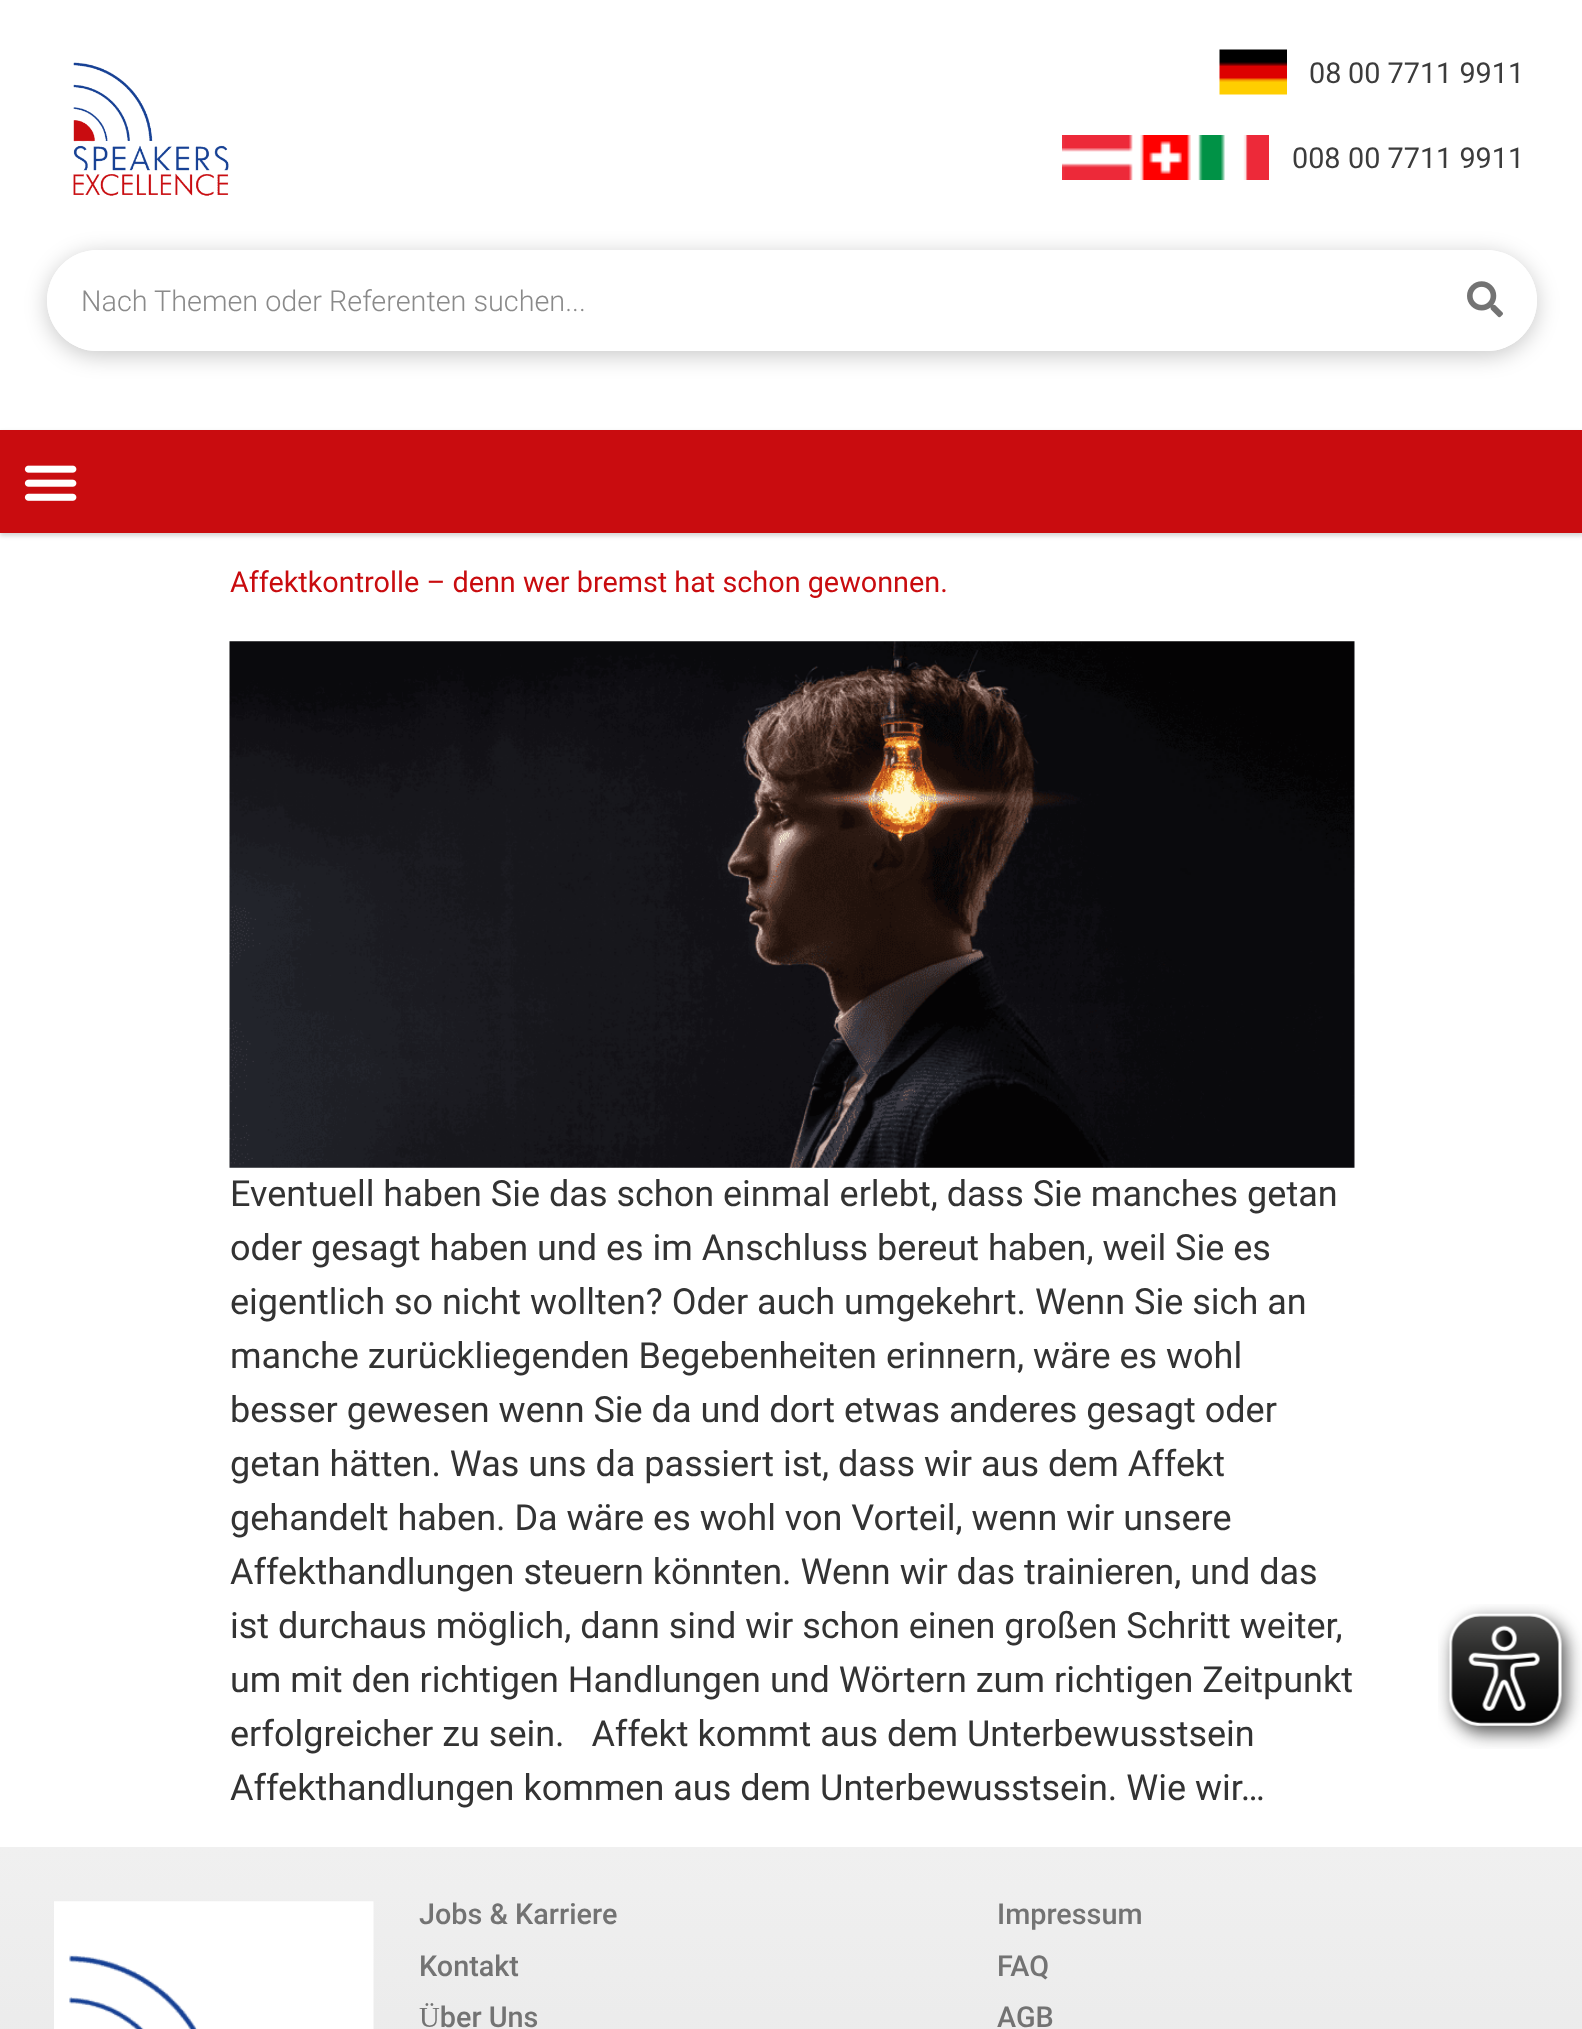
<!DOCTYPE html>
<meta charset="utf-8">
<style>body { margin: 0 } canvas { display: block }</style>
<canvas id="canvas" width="1582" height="2029"></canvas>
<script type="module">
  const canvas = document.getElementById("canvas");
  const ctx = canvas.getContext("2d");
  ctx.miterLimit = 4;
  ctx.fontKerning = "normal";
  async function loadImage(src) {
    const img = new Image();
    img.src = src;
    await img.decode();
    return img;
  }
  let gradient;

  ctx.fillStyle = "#ffffff";
  ctx.fillRect(0, 0, 1582, 2029);
  ctx.drawImage(await loadImage("img1.png"), 73, 62, 156, 134);
  ctx.drawImage(await loadImage("img2.png"), 1219, 49, 68, 46);
  ctx.font = "28.8px Roboto";
  ctx.fillStyle = "#3c3c3c";
  ctx.fillText("08", 1309, 83);
  ctx.fillText("00 7711 9911", 1348, 83);
  ctx.drawImage(await loadImage("img3.png"), 1062, 135, 207, 45);
  ctx.fillText("008", 1292, 168);
  ctx.fillText("00 7711 9911", 1348, 168);
  ctx.fillStyle = "rgba(0, 0, 0, 0.21)";
  ctx.filter = "blur(11px)";
  ctx.beginPath();
  ctx.roundRect(47, 254, 1490, 102, 51);
  ctx.fill();
  ctx.filter = "none";
  ctx.fillStyle = "#ffffff";
  ctx.beginPath();
  ctx.roundRect(47, 250, 1490, 101, 50.5);
  ctx.fill();
  ctx.beginPath();
  ctx.roundRect(47, 250, 1389, 101, [50.5, 11, 11, 50.5]);
  ctx.fill();
  ctx.font = "300 28.8px Roboto";
  ctx.fillStyle = "#8a8a8a";
  ctx.fillText("Nach Themen oder Referenten suchen...", 81, 311);
  ctx.fillStyle = "#ffffff";
  ctx.beginPath();
  ctx.roundRect(1436, 250, 101, 101, [0, 50.5, 50.5, 0]);
  ctx.fill();
  ctx.drawImage(await loadImage("img4.png"), 1467, 281, 36, 37);
  ctx.fillStyle = "rgba(0, 0, 0, 0.16)";
  ctx.filter = "blur(2px)";
  ctx.beginPath();
  ctx.rect(0, 432, 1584, 104);
  ctx.fill();
  ctx.filter = "none";
  ctx.fillStyle = "#c90c0f";
  ctx.fillRect(0, 430, 1582, 103);
  ctx.drawImage(await loadImage("img5.png"), 24, 465, 53, 36);
  ctx.font = "28.8px Roboto";
  ctx.fillText("Affektkontrolle – denn wer bremst hat schon gewonnen.", 230, 592);
  ctx.drawImage(await loadImage("img6.png"), 229, 641, 1126, 527);
  ctx.font = "36px Roboto";
  ctx.fillStyle = "#333333";
  ctx.fillText("Eventuell haben Sie das schon einmal erlebt, dass Sie manches getan", 230, 1206);
  ctx.fillText("oder gesagt haben und es im Anschluss bereut haben, weil Sie es", 230, 1260);
  ctx.fillText("eigentlich so nicht wollten? Oder auch umgekehrt. Wenn Sie sich an", 230, 1314);
  ctx.fillText("manche zurückliegenden Begebenheiten erinnern, wäre es wohl", 230, 1368);
  ctx.fillText("besser gewesen wenn Sie da und dort etwas anderes gesagt oder", 230, 1422);
  ctx.fillText("getan hätten. Was uns da passiert ist, dass wir aus dem Affekt", 230, 1476);
  ctx.fillText("gehandelt haben. Da wäre es wohl von Vorteil, wenn wir unsere", 230, 1530);
  ctx.fillText("Affekthandlungen steuern könnten. Wenn wir das trainieren, und das", 230, 1584);
  ctx.fillText("ist durchaus möglich, dann sind wir schon einen großen Schritt weiter,", 230, 1638);
  ctx.fillText("um mit den richtigen Handlungen und Wörtern zum richtigen Zeitpunkt", 230, 1692);
  ctx.fillText("erfolgreicher zu sein.   Affekt kommt aus dem Unterbewusstsein", 230, 1746);
  ctx.fillText("Affekthandlungen kommen aus dem Unterbewusstsein. Wie wir…", 230, 1800);
  ctx.drawImage(await loadImage("img7.png"), 1438, 1604, 144, 145);
  gradient = ctx.createLinearGradient(792, 1847, 792, 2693);
  gradient.addColorStop(0, "#f0f0f0");
  gradient.addColorStop(1, "#dcdcdc");
  ctx.fillStyle = gradient;
  ctx.fillRect(0, 1847, 1582, 182);
  ctx.drawImage(await loadImage("img8.png"), 54, 1901, 320, 128);
  ctx.font = "500 28.8px Roboto";
  ctx.fillStyle = "#737373";
  ctx.fillText("Jobs & Karriere", 419, 1924);
  ctx.fillText("Kontakt", 419, 1976);
  ctx.fillText("Über Uns", 419, 2027);
  ctx.fillText("Impressum", 997, 1924);
  ctx.fillText("FAQ", 997, 1976);
  ctx.fillText("AGB", 997, 2027);
</script>
